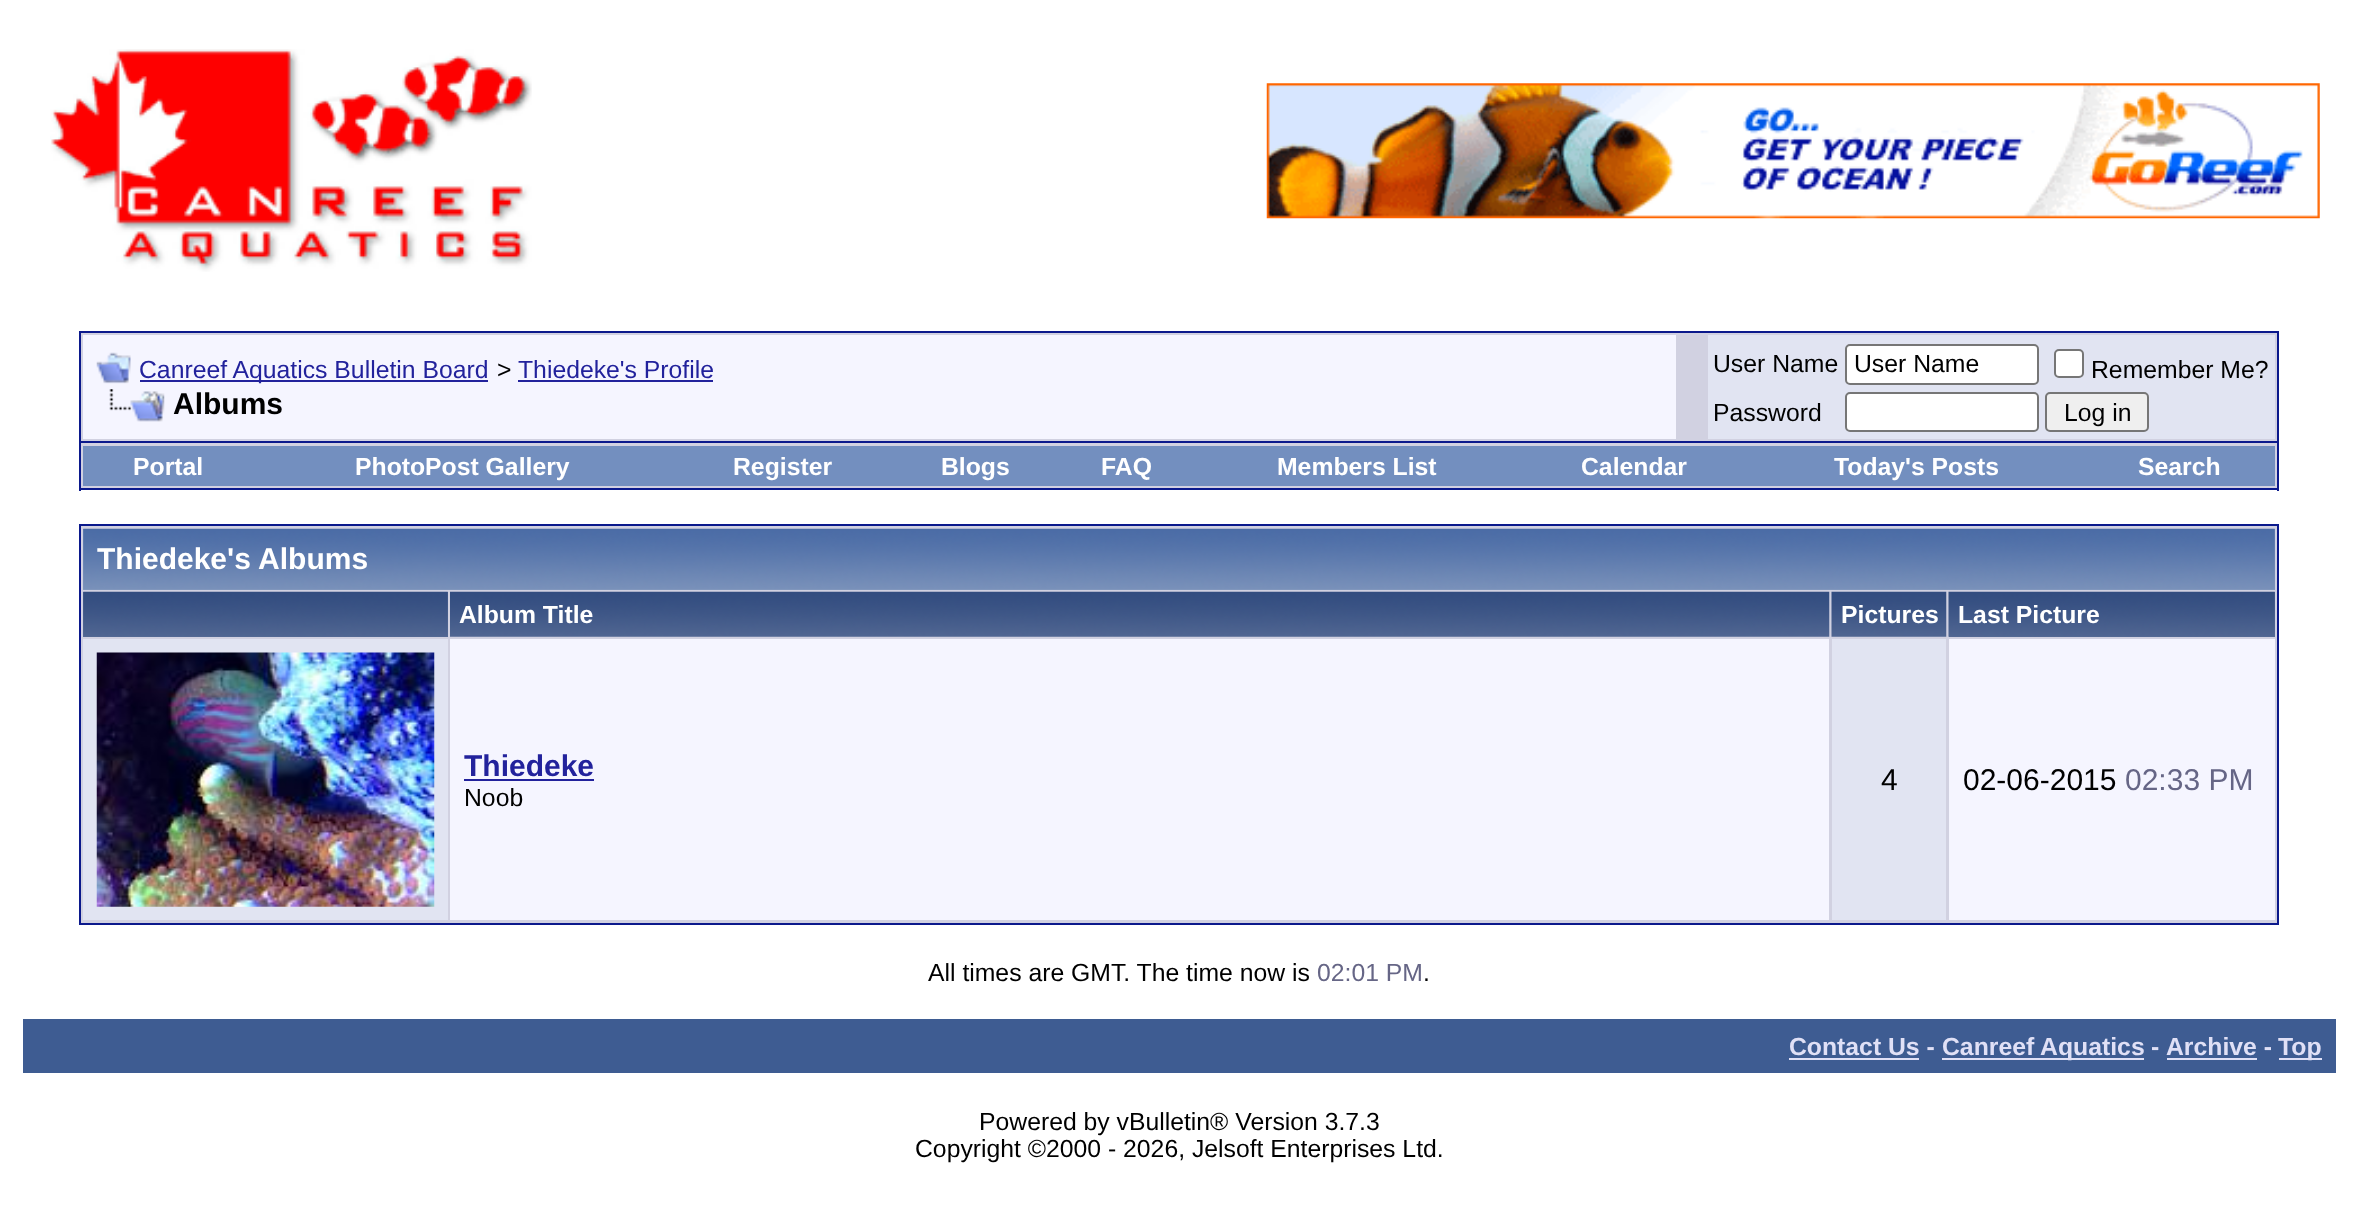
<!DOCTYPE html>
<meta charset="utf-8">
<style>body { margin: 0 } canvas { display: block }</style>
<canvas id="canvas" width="2358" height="1221"></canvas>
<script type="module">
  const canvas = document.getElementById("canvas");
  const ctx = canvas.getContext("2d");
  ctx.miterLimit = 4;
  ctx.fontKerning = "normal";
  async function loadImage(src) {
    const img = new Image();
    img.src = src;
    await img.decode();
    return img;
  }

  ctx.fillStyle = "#ffffff";
  ctx.fillRect(0, 0, 2358, 1221);
  ctx.drawImage(await loadImage("img1.png"), 50, 49, 482, 223);
  ctx.drawImage(await loadImage("img2.png"), 1266, 83, 1054, 136);
  ctx.fillStyle = "#d1d1e1";
  ctx.beginPath();
  ctx.rect(80, 332, 2198, 110);
  ctx.fill();
  ctx.strokeStyle = "#0b198c";
  ctx.lineWidth = 2;
  ctx.stroke();
  ctx.fillStyle = "#f5f5ff";
  ctx.fillRect(83, 335, 1593, 104);
  ctx.drawImage(await loadImage("img3.png"), 96, 352, 35, 32);
  ctx.fillStyle = "#22229c";
  ctx.fillRect(140, 380, 348, 2);
  ctx.font = "24.75px Liberation Sans";
  ctx.fillText("Canreef Aquatics Bulletin Board", 139, 378);
  ctx.fillStyle = "#000000";
  ctx.fillText(">", 497, 378);
  ctx.fillStyle = "#22229c";
  ctx.fillText("Thiedeke's Profile", 518, 378);
  ctx.fillRect(518, 380, 195, 2);
  ctx.drawImage(await loadImage("img4.png"), 109, 389, 56, 33);
  ctx.font = "bold 30px Liberation Sans";
  ctx.fillStyle = "#000000";
  ctx.fillText("Albums", 173, 414);
  ctx.fillStyle = "#e1e4f2";
  ctx.fillRect(1708, 335, 567, 104);
  ctx.font = "24.75px Liberation Sans";
  ctx.fillStyle = "#000000";
  ctx.fillText("User Name", 1713, 372);
  ctx.fillStyle = "#ffffff";
  ctx.beginPath();
  ctx.roundRect(1846, 345, 192, 39, 4);
  ctx.fill();
  ctx.strokeStyle = "#767676";
  ctx.stroke();
  ctx.fillStyle = "#000000";
  ctx.fillText("User Name", 1854, 372);
  ctx.fillStyle = "#ffffff";
  ctx.beginPath();
  ctx.roundRect(2055, 350, 28, 27, 4);
  ctx.fill();
  ctx.stroke();
  ctx.fillStyle = "#000000";
  ctx.fillText("Remember Me?", 2091, 378);
  ctx.fillText("Password", 1713, 421);
  ctx.fillStyle = "#ffffff";
  ctx.beginPath();
  ctx.roundRect(1846, 393, 192, 38, 4);
  ctx.fill();
  ctx.stroke();
  ctx.fillStyle = "#efefef";
  ctx.beginPath();
  ctx.roundRect(2046, 393, 102, 38, 4);
  ctx.fill();
  ctx.stroke();
  ctx.fillStyle = "#000000";
  ctx.fillText("Log in", 2064, 421);
  ctx.fillStyle = "#d1d1e1";
  ctx.fillRect(81, 443, 2196, 45);
  ctx.fillStyle = "#0b198c";
  ctx.fillRect(2277, 443, 2, 48);
  ctx.fillRect(79, 488, 2200, 2);
  ctx.fillRect(79, 443, 2, 48);
  ctx.fillStyle = "#738fbf";
  ctx.fillRect(83, 446, 2192, 40);
  ctx.font = "bold 24.75px Liberation Sans";
  ctx.fillStyle = "#ffffff";
  ctx.fillText("Portal", 133, 475);
  ctx.fillText("PhotoPost Gallery", 355, 475);
  ctx.fillText("Register", 733, 475);
  ctx.fillText("Blogs", 941, 475);
  ctx.fillText("FAQ", 1101, 475);
  ctx.fillText("Members List", 1277, 475);
  ctx.fillText("Calendar", 1581, 475);
  ctx.fillText("Today's Posts", 1834, 475);
  ctx.fillText("Search", 2138, 475);
  ctx.fillStyle = "#d1d1e1";
  ctx.beginPath();
  ctx.rect(80, 525, 2198, 399);
  ctx.fill();
  ctx.strokeStyle = "#0b198c";
  ctx.stroke();
  ctx.fillStyle = "#869bbf";
  ctx.fillRect(83, 529, 2192, 61);
  ctx.drawImage(await loadImage("img5.png"), 83, 528, 2192, 62);
  ctx.font = "bold 30px Liberation Sans";
  ctx.fillStyle = "#ffffff";
  ctx.fillText("Thiedeke's Albums", 97, 569);
  ctx.fillStyle = "#5c7099";
  ctx.fillRect(83, 592, 365, 45);
  ctx.drawImage(await loadImage("img6.png"), 83, 591, 365, 46);
  ctx.drawImage(await loadImage("img7.png"), 450, 591, 1380, 46);
  ctx.font = "bold 24.75px Liberation Sans";
  ctx.fillStyle = "#ffffff";
  ctx.fillText("Album Title", 459, 623);
  ctx.drawImage(await loadImage("img8.png"), 1831, 591, 116, 46);
  ctx.fillText("Pictures", 1841, 623);
  ctx.fillStyle = "#5c7099";
  ctx.fillRect(1949, 592, 326, 45);
  ctx.drawImage(await loadImage("img9.png"), 1948, 591, 327, 46);
  ctx.fillStyle = "#ffffff";
  ctx.fillText("Last Picture", 1958, 623);
  ctx.fillStyle = "#e1e4f2";
  ctx.fillRect(83, 639, 365, 281);
  ctx.drawImage(await loadImage("img10.png"), 96, 652, 339, 255);
  ctx.fillStyle = "#f5f5ff";
  ctx.fillRect(450, 639, 1379, 281);
  ctx.font = "bold 30px Liberation Sans";
  ctx.fillStyle = "#22229c";
  ctx.fillText("Thiedeke", 464, 776);
  ctx.fillRect(464, 779, 130, 2);
  ctx.font = "24.75px Liberation Sans";
  ctx.fillStyle = "#000000";
  ctx.fillText("Noob", 464, 806);
  ctx.fillStyle = "#e1e4f2";
  ctx.fillRect(1832, 639, 114, 281);
  ctx.font = "30px Liberation Sans";
  ctx.fillStyle = "#000000";
  ctx.fillText("4", 1881, 790);
  ctx.fillStyle = "#f5f5ff";
  ctx.fillRect(1949, 639, 326, 281);
  ctx.fillStyle = "#000000";
  ctx.fillText("02-06-2015", 1963, 790);
  ctx.fillStyle = "#666686";
  ctx.fillText("02:33 PM", 2125, 790);
  ctx.font = "24.75px Liberation Sans";
  ctx.fillStyle = "#000000";
  ctx.fillText("All times are GMT. The time now is", 928, 981);
  ctx.fillStyle = "#666686";
  ctx.fillText("02:01 PM", 1317, 981);
  ctx.fillStyle = "#000000";
  ctx.fillText(".", 1423, 981);
  ctx.fillStyle = "#3e5c92";
  ctx.fillRect(23, 1019, 2313, 54);
  ctx.font = "bold 24.75px Liberation Sans";
  ctx.fillStyle = "#e0e0f6";
  ctx.fillText("Contact Us -", 1789, 1055);
  ctx.fillRect(1789, 1058, 130, 2);
  ctx.fillRect(1942, 1058, 202, 2);
  ctx.fillText("Canreef Aquatics", 1942, 1055);
  ctx.fillText("-", 2151, 1055);
  ctx.fillText("Archive -", 2166, 1055);
  ctx.fillRect(2167, 1058, 90, 2);
  ctx.fillRect(2279, 1058, 43, 2);
  ctx.fillText("Top", 2278, 1055);
  ctx.font = "24.75px Liberation Sans";
  ctx.fillStyle = "#000000";
  ctx.fillText("Powered by vBulletin® Version 3.7.3", 979, 1130);
  ctx.fillText("Copyright ©2000 - 2026, Jelsoft Enterprises Ltd.", 915, 1157);
</script>
